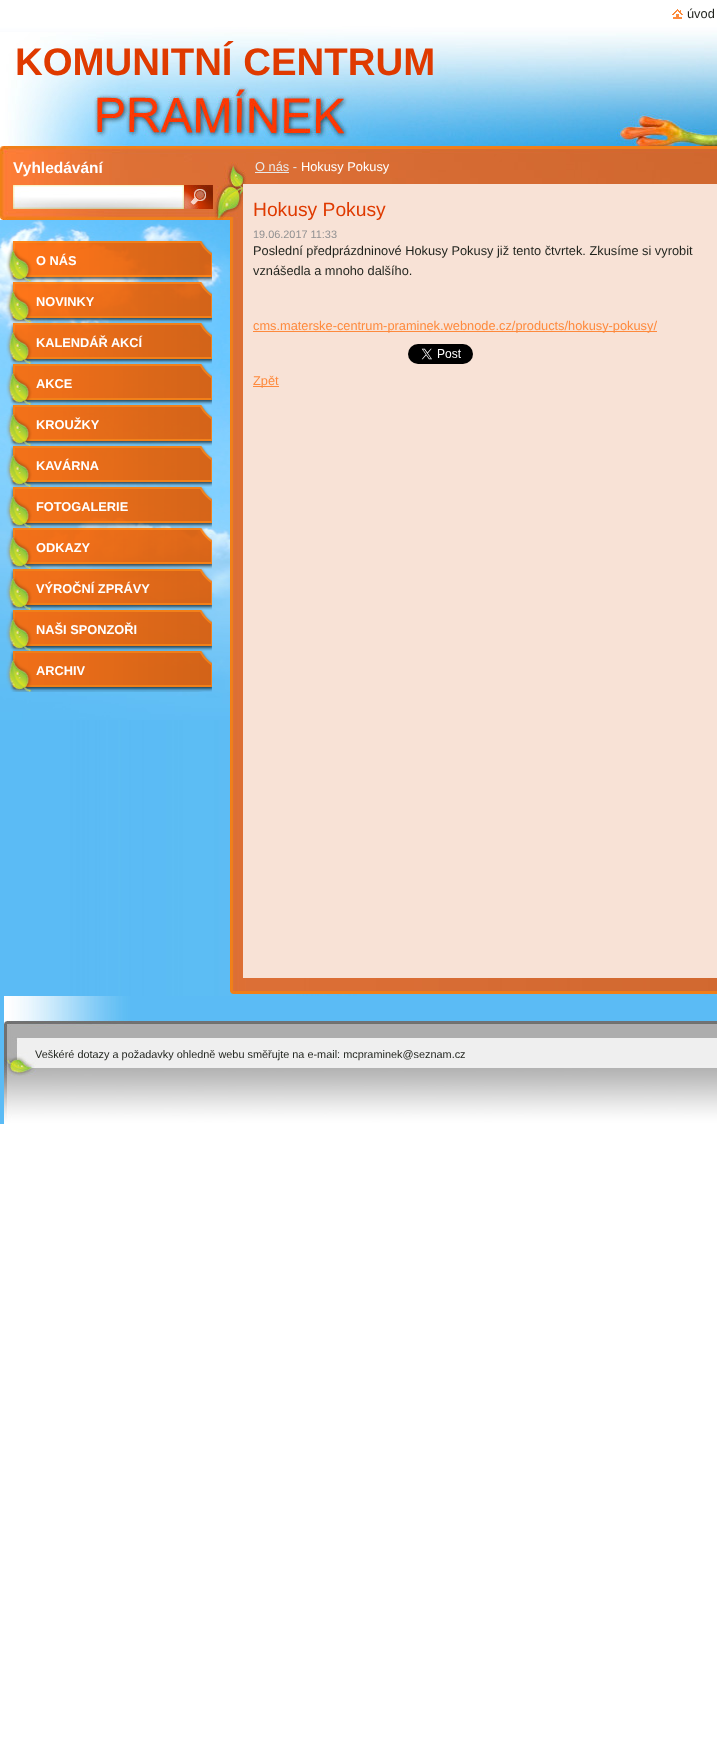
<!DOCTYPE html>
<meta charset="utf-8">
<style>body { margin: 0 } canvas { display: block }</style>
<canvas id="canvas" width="717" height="1746"></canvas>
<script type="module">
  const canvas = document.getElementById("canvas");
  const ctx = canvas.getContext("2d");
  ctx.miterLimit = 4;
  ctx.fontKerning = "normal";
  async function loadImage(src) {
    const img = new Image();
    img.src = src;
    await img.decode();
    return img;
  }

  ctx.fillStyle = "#ffffff";
  ctx.fillRect(0, 0, 717, 1746);
  ctx.drawImage(await loadImage("img1.png"), 0, 720, 717, 404);
  ctx.drawImage(await loadImage("img2.png"), 0, 0, 717, 720);
  ctx.drawImage(await loadImage("img3.png"), 672, 9, 11, 10);
  ctx.font = "12.8px Liberation Sans";
  ctx.fillStyle = "#1f221c";
  ctx.fillText("úvod", 687, 18);
  ctx.drawImage(await loadImage("img4.png"), 0, 32, 717, 114);
  ctx.font = "bold 38.4px Liberation Sans";
  ctx.fillStyle = "#df3a00";
  ctx.fillText("KOMUNITNÍ CENTRUM", 15, 75);
  ctx.drawImage(await loadImage("img5.png"), 0, 146, 230, 74);
  ctx.font = "bold 15.5px Liberation Sans";
  ctx.fillStyle = "#ffffff";
  ctx.fillText("Vyhledávání", 13, 173);
  ctx.drawImage(await loadImage("img6.png"), 13, 185, 171, 24);
  ctx.drawImage(await loadImage("img7.png"), 184, 185, 29, 24);
  ctx.drawImage(await loadImage("img8.png"), 230, 220, 487, 771);
  ctx.drawImage(await loadImage("img9.png"), 230, 146, 487, 74);
  ctx.font = "12.8px Liberation Sans";
  ctx.fillStyle = "#e9e9e9";
  ctx.fillText("O nás -", 255, 171);
  ctx.fillRect(255, 172, 34, 1);
  ctx.fillStyle = "#ffffff";
  ctx.fillText("Hokusy Pokusy", 301, 171);
  ctx.fillStyle = "#f8e2d6";
  ctx.fillRect(243, 184, 474, 794);
  ctx.font = "19.25px Liberation Sans";
  ctx.fillStyle = "#df3a00";
  ctx.fillText("Hokusy Pokusy", 253, 216);
  ctx.font = "10.9px Liberation Sans";
  ctx.fillStyle = "#919192";
  ctx.fillText("19.06.2017 11:33", 253, 238);
  ctx.font = "12.8px Liberation Sans";
  ctx.fillStyle = "#1f221c";
  ctx.fillText("Poslední předprázdninové Hokusy Pokusy již tento čtvrtek. Zkusíme si vyrobit", 253, 255);
  ctx.fillText("vznášedla a mnoho dalšího.", 253, 275);
  ctx.fillStyle = "#fe8a3d";
  ctx.fillRect(253, 331, 404, 1);
  ctx.fillText("cms.materske-centrum-praminek.webnode.cz/products/hokusy-pokusy/", 253, 330);
  ctx.drawImage(await loadImage("img10.png"), 408, 344, 65, 20);
  ctx.fillRect(253, 386, 26, 1);
  ctx.fillText("Zpět", 253, 385);
  ctx.drawImage(await loadImage("img11.png"), 230, 991, 487, 3);
  ctx.drawImage(await loadImage("img12.png"), 6, 241, 206, 41);
  ctx.font = "bold 12.8px Liberation Sans";
  ctx.fillStyle = "#ffffff";
  ctx.fillText("O NÁS", 36, 265);
  ctx.drawImage(await loadImage("img13.png"), 6, 282, 206, 41);
  ctx.fillText("NOVINKY", 36, 306);
  ctx.drawImage(await loadImage("img14.png"), 6, 323, 206, 41);
  ctx.fillText("KALENDÁŘ AKCÍ", 36, 347);
  ctx.drawImage(await loadImage("img15.png"), 6, 364, 206, 41);
  ctx.fillText("AKCE", 36, 388);
  ctx.drawImage(await loadImage("img16.png"), 6, 405, 206, 41);
  ctx.fillText("KROUŽKY", 36, 429);
  ctx.drawImage(await loadImage("img17.png"), 6, 446, 206, 41);
  ctx.fillText("KAVÁRNA", 36, 470);
  ctx.drawImage(await loadImage("img18.png"), 6, 487, 206, 41);
  ctx.fillText("FOTOGALERIE", 36, 511);
  ctx.drawImage(await loadImage("img19.png"), 6, 528, 206, 41);
  ctx.fillText("ODKAZY", 36, 552);
  ctx.drawImage(await loadImage("img20.png"), 6, 569, 206, 41);
  ctx.fillText("VÝROČNÍ ZPRÁVY", 36, 593);
  ctx.drawImage(await loadImage("img21.png"), 6, 610, 206, 41);
  ctx.fillText("NAŠI SPONZOŘI", 36, 634);
  ctx.drawImage(await loadImage("img22.png"), 6, 651, 206, 41);
  ctx.fillText("ARCHIV", 36, 675);
  ctx.drawImage(await loadImage("img23.png"), 4, 996, 713, 128);
  ctx.font = "10.9px Liberation Sans";
  ctx.fillStyle = "#1f221c";
  ctx.fillText("Veškéré dotazy a požadavky ohledně webu směřujte na e-mail: mcpraminek@seznam.cz", 35, 1058);
</script>
